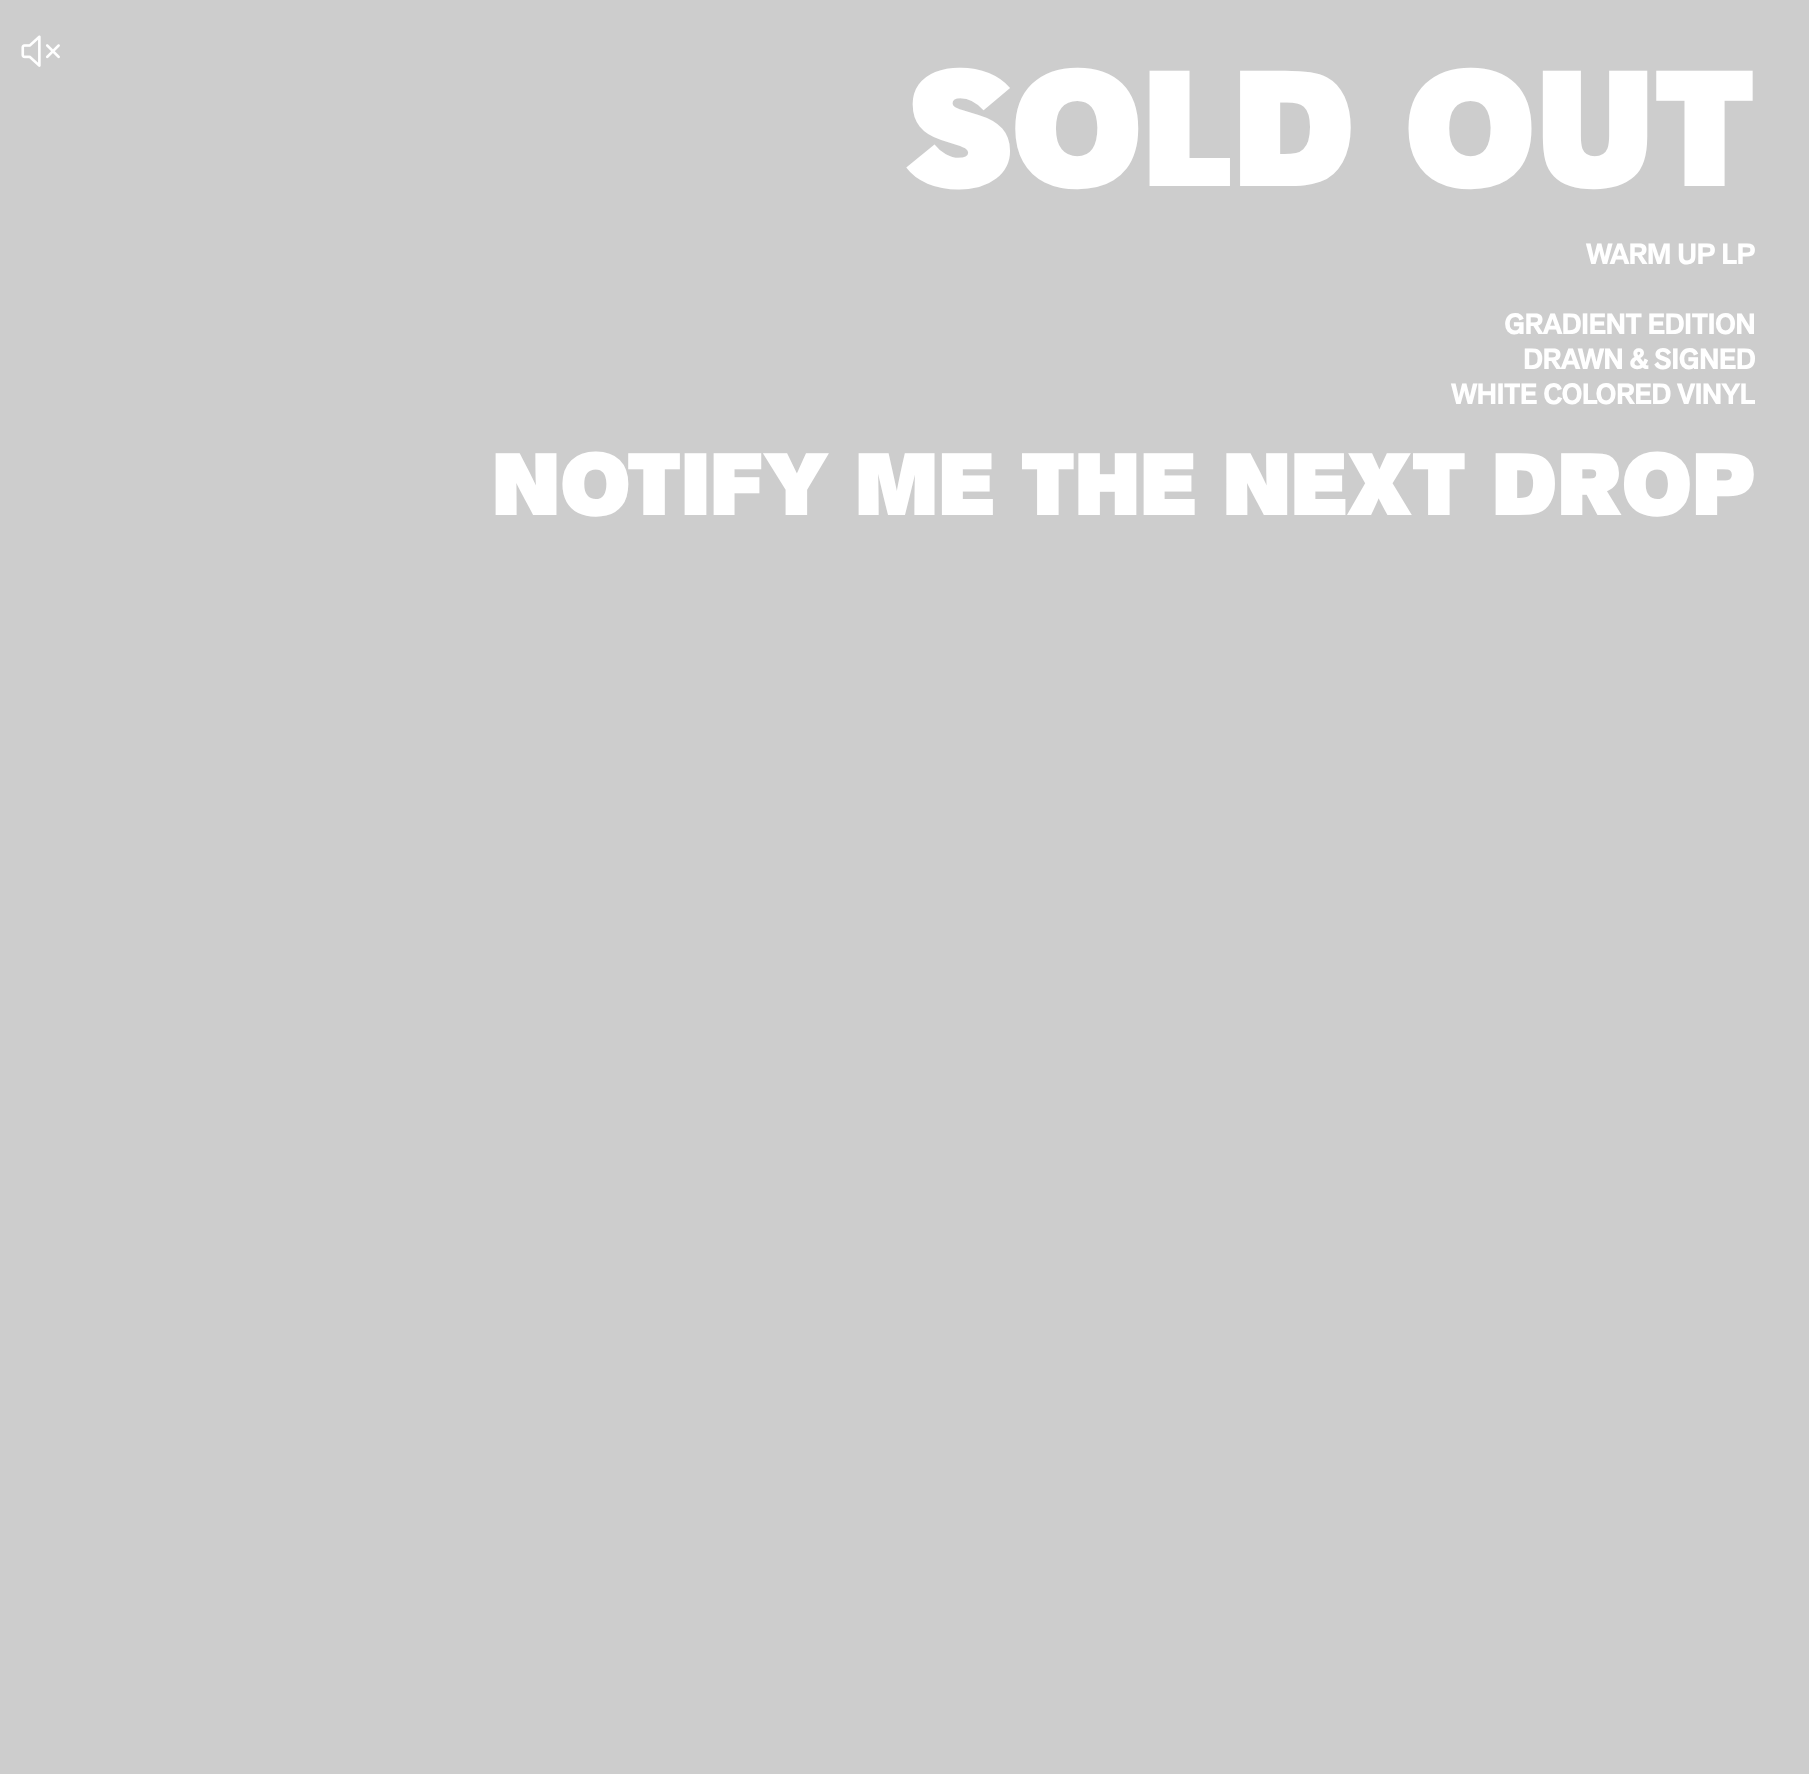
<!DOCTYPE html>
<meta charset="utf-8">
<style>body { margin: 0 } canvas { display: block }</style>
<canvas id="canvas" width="1809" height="1774"></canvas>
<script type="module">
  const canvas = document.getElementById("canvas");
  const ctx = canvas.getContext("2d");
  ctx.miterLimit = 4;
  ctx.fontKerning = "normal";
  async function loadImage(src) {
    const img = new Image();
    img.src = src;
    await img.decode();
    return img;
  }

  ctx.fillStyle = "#cdcdcd";
  ctx.fillRect(0, 0, 1809, 1774);
  ctx.drawImage(await loadImage("img1.png"), 21, 35, 39, 32);
  ctx.font = "900 163.25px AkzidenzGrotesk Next";
  ctx.fillStyle = "#ffffff";
  ctx.fillText("SOLD OUT", 906, 186);
  ctx.font = "bold 28px AkzidenzGrotesk Next";
  ctx.fillText("WARM UP LP", 1586, 264);
  ctx.fillText("GRADIENT EDITION", 1504, 334);
  ctx.fillText("DRAWN & SIGNED", 1523, 369);
  ctx.fillText("WHITE COLORED VINYL", 1451, 404);
  ctx.font = "900 87.5px AkzidenzGrotesk Next";
  ctx.fillText("NOTIFY ME THE NEXT DROP", 492, 515);
</script>
